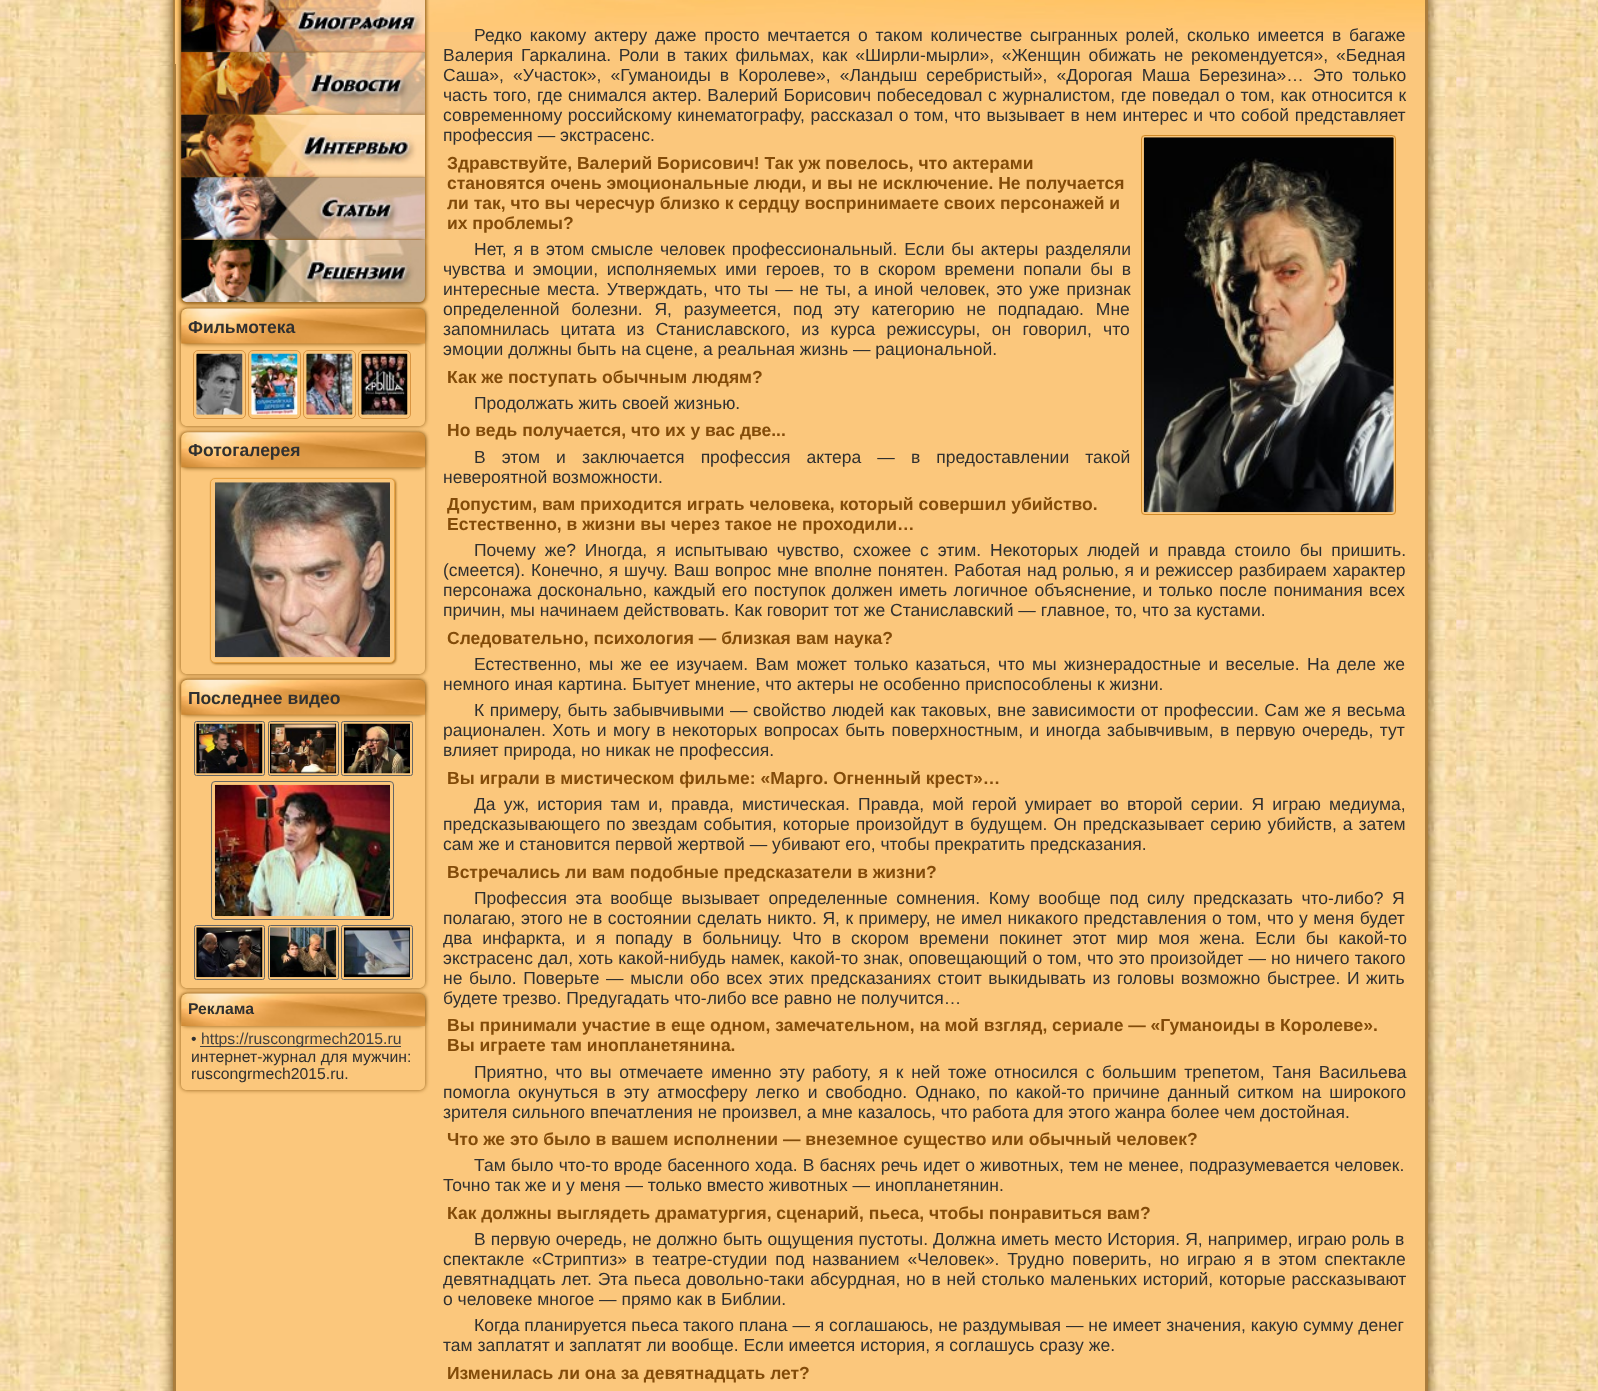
<!DOCTYPE html>
<meta charset="utf-8">
<style>body { margin: 0 } canvas { display: block }</style>
<canvas id="canvas" width="1598" height="1391"></canvas>
<script type="module">
  const canvas = document.getElementById("canvas");
  const ctx = canvas.getContext("2d");
  ctx.miterLimit = 4;
  ctx.fontKerning = "normal";
  async function loadImage(src) {
    const img = new Image();
    img.src = src;
    await img.decode();
    return img;
  }

  ctx.fillStyle = "#ffffff";
  ctx.fillRect(0, 0, 1598, 1391);
  ctx.drawImage(await loadImage("img1.png"), 0, 0, 1598, 1391);
  ctx.fillStyle = "#5b3a0b";
  ctx.filter = "blur(6px)";
  ctx.beginPath();
  ctx.rect(173, -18, 1255, 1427);
  ctx.fill();
  ctx.filter = "none";
  ctx.fillStyle = "#fbc77c";
  ctx.fillRect(176, 64, 1249, 1327);
  ctx.fillStyle = "#aa7d3d";
  ctx.fillRect(1425, 0, 3, 1391);
  ctx.fillRect(173, 0, 3, 1391);
  ctx.fillStyle = "#fbc77c";
  ctx.fillRect(175, 32, 1250, 32);
  ctx.drawImage(await loadImage("img2.png"), 175, 0, 1250, 32);
  ctx.fillStyle = "#8c5913";
  ctx.filter = "blur(2px)";
  ctx.beginPath();
  ctx.roundRect(181, -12, 244, 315, 6);
  ctx.fill();
  ctx.filter = "none";
  ctx.filter = "blur(2px)";
  ctx.beginPath();
  ctx.rect(181, -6, 244, 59);
  ctx.fill();
  ctx.filter = "none";
  ctx.drawImage(await loadImage("img3.png"), 181, 0, 244, 53);
  ctx.filter = "blur(2px)";
  ctx.beginPath();
  ctx.rect(181, 53, 244, 62);
  ctx.fill();
  ctx.filter = "none";
  ctx.drawImage(await loadImage("img4.png"), 181, 52, 244, 63);
  ctx.filter = "blur(2px)";
  ctx.beginPath();
  ctx.rect(181, 115, 244, 63);
  ctx.fill();
  ctx.filter = "none";
  ctx.drawImage(await loadImage("img5.png"), 181, 114, 244, 64);
  ctx.filter = "blur(2px)";
  ctx.beginPath();
  ctx.rect(181, 178, 244, 62);
  ctx.fill();
  ctx.filter = "none";
  ctx.drawImage(await loadImage("img6.png"), 181, 177, 244, 63);
  ctx.save();
  ctx.beginPath();
  ctx.moveTo(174, 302);
  ctx.lineTo(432, 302);
  ctx.lineTo(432, 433);
  ctx.lineTo(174, 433);
  ctx.closePath();
  ctx.moveTo(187, 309);
  ctx.lineTo(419, 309);
  ctx.bezierCurveTo(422.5, 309, 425, 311.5, 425, 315);
  ctx.lineTo(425, 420);
  ctx.bezierCurveTo(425, 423.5, 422.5, 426, 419, 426);
  ctx.lineTo(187, 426);
  ctx.bezierCurveTo(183.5, 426, 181, 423.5, 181, 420);
  ctx.lineTo(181, 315);
  ctx.bezierCurveTo(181, 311.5, 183.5, 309, 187, 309);
  ctx.closePath();
  ctx.clip("evenodd");
  ctx.filter = "blur(2px)";
  ctx.beginPath();
  ctx.roundRect(181, 309, 244, 117, 6);
  ctx.fill();
  ctx.filter = "none";
  ctx.restore();
  ctx.filter = "blur(2px)";
  ctx.beginPath();
  ctx.roundRect(181, 309, 244, 35, 6);
  ctx.fill();
  ctx.filter = "none";
  ctx.drawImage(await loadImage("img8.png"), 181, 308, 244, 36);
  ctx.filter = "blur(2px)";
  ctx.beginPath();
  ctx.roundRect(181, 240, 244, 63, 6);
  ctx.fill();
  ctx.filter = "none";
  ctx.drawImage(await loadImage("img7.png"), 181, 239, 244, 64);
  ctx.font = "bold 17.5px Liberation Sans";
  ctx.fillStyle = "#303030";
  ctx.fillText("Фильмотека", 188, 333);
  ctx.beginPath();
  ctx.roundRect(193.5, 350.5, 52, 68, 4.5);
  ctx.strokeStyle = "#d99542";
  ctx.stroke();
  ctx.drawImage(await loadImage("img9.png"), 196, 353, 47, 62);
  ctx.beginPath();
  ctx.roundRect(248.5, 350.5, 52, 68, 4.5);
  ctx.stroke();
  ctx.drawImage(await loadImage("img10.png"), 251, 353, 47, 62);
  ctx.beginPath();
  ctx.roundRect(303.5, 350.5, 52, 68, 4.5);
  ctx.stroke();
  ctx.drawImage(await loadImage("img11.png"), 306, 353, 47, 62);
  ctx.beginPath();
  ctx.roundRect(358.5, 350.5, 52, 68, 4.5);
  ctx.stroke();
  ctx.drawImage(await loadImage("img12.png"), 361, 353, 47, 62);
  ctx.save();
  ctx.beginPath();
  ctx.moveTo(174, 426);
  ctx.lineTo(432, 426);
  ctx.lineTo(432, 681);
  ctx.lineTo(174, 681);
  ctx.closePath();
  ctx.moveTo(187, 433);
  ctx.lineTo(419, 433);
  ctx.bezierCurveTo(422.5, 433, 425, 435.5, 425, 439);
  ctx.lineTo(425, 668);
  ctx.bezierCurveTo(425, 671.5, 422.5, 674, 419, 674);
  ctx.lineTo(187, 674);
  ctx.bezierCurveTo(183.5, 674, 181, 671.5, 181, 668);
  ctx.lineTo(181, 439);
  ctx.bezierCurveTo(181, 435.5, 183.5, 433, 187, 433);
  ctx.closePath();
  ctx.clip("evenodd");
  ctx.fillStyle = "#8c5913";
  ctx.filter = "blur(2px)";
  ctx.beginPath();
  ctx.roundRect(181, 433, 244, 241, 6);
  ctx.fill();
  ctx.filter = "none";
  ctx.restore();
  ctx.fillStyle = "#8c5913";
  ctx.filter = "blur(2px)";
  ctx.beginPath();
  ctx.roundRect(181, 433, 244, 35, 6);
  ctx.fill();
  ctx.filter = "none";
  ctx.drawImage(await loadImage("img13.png"), 181, 432, 244, 36);
  ctx.fillStyle = "#303030";
  ctx.fillText("Фотогалерея", 188, 456);
  ctx.fillStyle = "#aa7120";
  ctx.filter = "blur(1px)";
  ctx.beginPath();
  ctx.roundRect(211, 479, 185, 185, 5);
  ctx.fill();
  ctx.filter = "none";
  ctx.fillStyle = "#fbc77c";
  ctx.beginPath();
  ctx.roundRect(210.5, 478.5, 184, 184, 4.5);
  ctx.fill();
  ctx.strokeStyle = "#e8a343";
  ctx.stroke();
  ctx.drawImage(await loadImage("img14.png"), 215, 482, 175, 176);
  ctx.save();
  ctx.beginPath();
  ctx.moveTo(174, 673);
  ctx.lineTo(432, 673);
  ctx.lineTo(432, 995);
  ctx.lineTo(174, 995);
  ctx.closePath();
  ctx.moveTo(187, 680);
  ctx.lineTo(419, 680);
  ctx.bezierCurveTo(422.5, 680, 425, 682.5, 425, 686);
  ctx.lineTo(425, 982);
  ctx.bezierCurveTo(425, 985.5, 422.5, 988, 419, 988);
  ctx.lineTo(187, 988);
  ctx.bezierCurveTo(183.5, 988, 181, 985.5, 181, 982);
  ctx.lineTo(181, 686);
  ctx.bezierCurveTo(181, 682.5, 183.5, 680, 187, 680);
  ctx.closePath();
  ctx.clip("evenodd");
  ctx.fillStyle = "#8c5913";
  ctx.filter = "blur(2px)";
  ctx.beginPath();
  ctx.roundRect(181, 680, 244, 308, 6);
  ctx.fill();
  ctx.filter = "none";
  ctx.restore();
  ctx.fillStyle = "#8c5913";
  ctx.filter = "blur(2px)";
  ctx.beginPath();
  ctx.roundRect(181, 680, 244, 35, 6);
  ctx.fill();
  ctx.filter = "none";
  ctx.drawImage(await loadImage("img15.png"), 181, 679, 244, 36);
  ctx.fillStyle = "#303030";
  ctx.fillText("Последнее видео", 188, 704);
  ctx.beginPath();
  ctx.roundRect(194.5, 721.5, 70, 54, 2);
  ctx.strokeStyle = "#666666";
  ctx.stroke();
  ctx.drawImage(await loadImage("img16.png"), 196, 723, 67, 51);
  ctx.beginPath();
  ctx.roundRect(268.5, 721.5, 70, 54, 2);
  ctx.stroke();
  ctx.drawImage(await loadImage("img17.png"), 270, 723, 67, 51);
  ctx.beginPath();
  ctx.roundRect(341.5, 721.5, 71, 54, 2);
  ctx.stroke();
  ctx.drawImage(await loadImage("img18.png"), 343, 723, 67, 51);
  ctx.beginPath();
  ctx.roundRect(211.5, 781.5, 182, 138, 3.5);
  ctx.stroke();
  ctx.drawImage(await loadImage("img19.png"), 215, 784, 175, 132);
  ctx.beginPath();
  ctx.roundRect(194.5, 925.5, 70, 54, 2);
  ctx.stroke();
  ctx.drawImage(await loadImage("img20.png"), 196, 927, 67, 51);
  ctx.beginPath();
  ctx.roundRect(268.5, 925.5, 70, 54, 2);
  ctx.stroke();
  ctx.drawImage(await loadImage("img21.png"), 270, 927, 67, 51);
  ctx.beginPath();
  ctx.roundRect(341.5, 925.5, 71, 54, 2);
  ctx.stroke();
  ctx.drawImage(await loadImage("img22.png"), 343, 927, 67, 51);
  ctx.save();
  ctx.beginPath();
  ctx.moveTo(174, 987);
  ctx.lineTo(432, 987);
  ctx.lineTo(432, 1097);
  ctx.lineTo(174, 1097);
  ctx.closePath();
  ctx.moveTo(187, 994);
  ctx.lineTo(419, 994);
  ctx.bezierCurveTo(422.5, 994, 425, 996.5, 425, 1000);
  ctx.lineTo(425, 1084);
  ctx.bezierCurveTo(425, 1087.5, 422.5, 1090, 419, 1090);
  ctx.lineTo(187, 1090);
  ctx.bezierCurveTo(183.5, 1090, 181, 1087.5, 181, 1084);
  ctx.lineTo(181, 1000);
  ctx.bezierCurveTo(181, 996.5, 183.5, 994, 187, 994);
  ctx.closePath();
  ctx.clip("evenodd");
  ctx.fillStyle = "#8c5913";
  ctx.filter = "blur(2px)";
  ctx.beginPath();
  ctx.roundRect(181, 994, 244, 96, 6);
  ctx.fill();
  ctx.filter = "none";
  ctx.restore();
  ctx.fillStyle = "#8c5913";
  ctx.filter = "blur(2px)";
  ctx.beginPath();
  ctx.roundRect(181, 994, 244, 32, 6);
  ctx.fill();
  ctx.filter = "none";
  ctx.drawImage(await loadImage("img23.png"), 181, 993, 244, 33);
  ctx.font = "bold 15.75px Liberation Sans";
  ctx.fillStyle = "#303030";
  ctx.fillText("Реклама", 188, 1014);
  ctx.font = "15.75px Liberation Sans";
  ctx.fillText("•", 191, 1044);
  ctx.fillStyle = "#404040";
  ctx.fillRect(200, 1046, 201, 1);
  ctx.fillText("https://ruscongrmech2015.ru", 201, 1044);
  ctx.fillStyle = "#303030";
  ctx.fillText("интернет-журнал для мужчин:", 191, 1062);
  ctx.fillText("ruscongrmech2015.ru.", 191, 1079);
  ctx.wordSpacing = "2.9px";
  ctx.font = "17.5px Liberation Sans";
  ctx.fillText("Редко какому актеру даже просто мечтается о таком количестве сыгранных ролей, сколько имеется в багаже", 474, 41);
  ctx.fillText("Валерия Гаркалина. Роли в таких фильмах, как «Ширли-мырли», «Женщин обижать не рекомендуется», «Бедная", 443, 61);
  ctx.wordSpacing = "4.25px";
  ctx.fillText("Саша», «Участок», «Гуманоиды в Королеве», «Ландыш серебристый», «Дорогая Маша Березина»… Это только", 443, 81);
  ctx.wordSpacing = "0.7px";
  ctx.fillText("часть того, где снимался актер. Валерий Борисович побеседовал с журналистом, где поведал о том, как относится к", 443, 101);
  ctx.wordSpacing = "0.75px";
  ctx.fillText("современному российскому кинематографу, рассказал о том, что вызывает в нем интерес и что собой представляет", 443, 121);
  ctx.wordSpacing = "0px";
  ctx.fillText("профессия — экстрасенс.", 443, 141);
  ctx.save();
  ctx.beginPath();
  ctx.moveTo(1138, 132);
  ctx.lineTo(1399, 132);
  ctx.lineTo(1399, 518);
  ctx.lineTo(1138, 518);
  ctx.closePath();
  ctx.moveTo(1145, 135);
  ctx.lineTo(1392, 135);
  ctx.bezierCurveTo(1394, 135, 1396, 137, 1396, 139);
  ctx.lineTo(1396, 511);
  ctx.bezierCurveTo(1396, 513, 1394, 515, 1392, 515);
  ctx.lineTo(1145, 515);
  ctx.bezierCurveTo(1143, 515, 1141, 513, 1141, 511);
  ctx.lineTo(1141, 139);
  ctx.bezierCurveTo(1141, 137, 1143, 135, 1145, 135);
  ctx.closePath();
  ctx.clip("evenodd");
  ctx.fillStyle = "#eaac54";
  ctx.filter = "blur(0.5px)";
  ctx.beginPath();
  ctx.roundRect(1141, 135, 255, 380, 4);
  ctx.fill();
  ctx.filter = "none";
  ctx.restore();
  ctx.beginPath();
  ctx.roundRect(1141.5, 135.5, 254, 379, 3.5);
  ctx.strokeStyle = "#d18a27";
  ctx.stroke();
  ctx.drawImage(await loadImage("img24.png"), 1143, 137, 251, 376);
  ctx.font = "bold 17.5px Liberation Sans";
  ctx.fillStyle = "#824b09";
  ctx.fillText("Здравствуйте, Валерий Борисович! Так уж повелось, что актерами", 447, 169);
  ctx.fillText("становятся очень эмоциональные люди, и вы не исключение. Не получается", 447, 189);
  ctx.fillText("ли так, что вы чересчур близко к сердцу воспринимаете своих персонажей и", 447, 209);
  ctx.fillText("их проблемы?", 447, 229);
  ctx.wordSpacing = "2px";
  ctx.font = "17.5px Liberation Sans";
  ctx.fillStyle = "#303030";
  ctx.fillText("Нет, я в этом смысле человек профессиональный. Если бы актеры разделяли", 474, 255);
  ctx.wordSpacing = "3.9px";
  ctx.fillText("чувства и эмоции, исполняемых ими героев, то в скором времени попали бы в", 443, 275);
  ctx.wordSpacing = "1.9px";
  ctx.fillText("интересные места. Утверждать, что ты — не ты, а иной человек, это уже признак", 443, 295);
  ctx.wordSpacing = "7px";
  ctx.fillText("определенной болезни. Я, разумеется, под эту категорию не подпадаю. Мне", 443, 315);
  ctx.wordSpacing = "6.5px";
  ctx.fillText("запомнилась цитата из Станиславского, из курса режиссуры, он говорил, что", 443, 335);
  ctx.wordSpacing = "0px";
  ctx.fillText("эмоции должны быть на сцене, а реальная жизнь — рациональной.", 443, 355);
  ctx.font = "bold 17.5px Liberation Sans";
  ctx.fillStyle = "#824b09";
  ctx.fillText("Как же поступать обычным людям?", 447, 383);
  ctx.font = "17.5px Liberation Sans";
  ctx.fillStyle = "#303030";
  ctx.fillText("Продолжать жить своей жизнью.", 474, 409);
  ctx.font = "bold 17.5px Liberation Sans";
  ctx.fillStyle = "#824b09";
  ctx.fillText("Но ведь получается, что их у вас две...", 447, 436);
  ctx.wordSpacing = "11.25px";
  ctx.font = "17.5px Liberation Sans";
  ctx.fillStyle = "#303030";
  ctx.fillText("В этом и заключается профессия актера — в предоставлении такой", 474, 463);
  ctx.wordSpacing = "0px";
  ctx.fillText("невероятной возможности.", 443, 483);
  ctx.font = "bold 17.5px Liberation Sans";
  ctx.fillStyle = "#824b09";
  ctx.fillText("Допустим, вам приходится играть человека, который совершил убийство.", 447, 510);
  ctx.fillText("Естественно, в жизни вы через такое не проходили…", 447, 530);
  ctx.wordSpacing = "4.1px";
  ctx.font = "17.5px Liberation Sans";
  ctx.fillStyle = "#303030";
  ctx.fillText("Почему же? Иногда, я испытываю чувство, схожее с этим. Некоторых людей и правда стоило бы пришить.", 474, 556);
  ctx.wordSpacing = "0.9px";
  ctx.fillText("(смеется). Конечно, я шучу. Ваш вопрос мне вполне понятен. Работая над ролью, я и режиссер разбираем характер", 443, 576);
  ctx.wordSpacing = "1.5px";
  ctx.fillText("персонажа досконально, каждый его поступок должен иметь логичное объяснение, и только после понимания всех", 443, 596);
  ctx.wordSpacing = "0px";
  ctx.fillText("причин, мы начинаем действовать. Как говорит тот же Станиславский — главное, то, что за кустами.", 443, 616);
  ctx.font = "bold 17.5px Liberation Sans";
  ctx.fillStyle = "#824b09";
  ctx.fillText("Следовательно, психология — близкая вам наука?", 447, 644);
  ctx.wordSpacing = "2.5px";
  ctx.font = "17.5px Liberation Sans";
  ctx.fillStyle = "#303030";
  ctx.fillText("Естественно, мы же ее изучаем. Вам может только казаться, что мы жизнерадостные и веселые. На деле же", 474, 670);
  ctx.wordSpacing = "0px";
  ctx.fillText("немного иная картина. Бытует мнение, что актеры не особенно приспособлены к жизни.", 443, 690);
  ctx.wordSpacing = "0.75px";
  ctx.fillText("К примеру, быть забывчивыми — свойство людей как таковых, вне зависимости от профессии. Сам же я весьма", 474, 716);
  ctx.wordSpacing = "1.6px";
  ctx.fillText("рационален. Хоть и могу в некоторых вопросах быть поверхностным, и иногда забывчивым, в первую очередь, тут", 443, 736);
  ctx.wordSpacing = "0px";
  ctx.fillText("влияет природа, но никак не профессия.", 443, 756);
  ctx.font = "bold 17.5px Liberation Sans";
  ctx.fillStyle = "#824b09";
  ctx.fillText("Вы играли в мистическом фильме: «Марго. Огненный крест»…", 447, 784);
  ctx.wordSpacing = "3.25px";
  ctx.font = "17.5px Liberation Sans";
  ctx.fillStyle = "#303030";
  ctx.fillText("Да уж, история там и, правда, мистическая. Правда, мой герой умирает во второй серии. Я играю медиума,", 474, 810);
  ctx.wordSpacing = "1.1px";
  ctx.fillText("предсказывающего по звездам события, которые произойдут в будущем. Он предсказывает серию убийств, а затем", 443, 830);
  ctx.wordSpacing = "0px";
  ctx.fillText("сам же и становится первой жертвой — убивают его, чтобы прекратить предсказания.", 443, 850);
  ctx.font = "bold 17.5px Liberation Sans";
  ctx.fillStyle = "#824b09";
  ctx.fillText("Встречались ли вам подобные предсказатели в жизни?", 447, 878);
  ctx.wordSpacing = "3.75px";
  ctx.font = "17.5px Liberation Sans";
  ctx.fillStyle = "#303030";
  ctx.fillText("Профессия эта вообще вызывает определенные сомнения. Кому вообще под силу предсказать что-либо? Я", 474, 904);
  ctx.wordSpacing = "0.6px";
  ctx.fillText("полагаю, этого не в состоянии сделать никто. Я, к примеру, не имел никакого представления о том, что у меня будет", 443, 924);
  ctx.wordSpacing = "5.25px";
  ctx.fillText("два инфаркта, и я попаду в больницу. Что в скором времени покинет этот мир моя жена. Если бы какой-то", 443, 944);
  ctx.wordSpacing = "0.25px";
  ctx.fillText("экстрасенс дал, хоть какой-нибудь намек, какой-то знак, оповещающий о том, что это произойдет — но ничего такого", 443, 964);
  ctx.wordSpacing = "1.75px";
  ctx.fillText("не было. Поверьте — мысли обо всех этих предсказаниях стоит выкидывать из головы возможно быстрее. И жить", 443, 984);
  ctx.wordSpacing = "0px";
  ctx.fillText("будете трезво. Предугадать что-либо все равно не получится…", 443, 1004);
  ctx.font = "bold 17.5px Liberation Sans";
  ctx.fillStyle = "#824b09";
  ctx.fillText("Вы принимали участие в еще одном, замечательном, на мой взгляд, сериале — «Гуманоиды в Королеве».", 447, 1031);
  ctx.fillText("Вы играете там инопланетянина.", 447, 1051);
  ctx.wordSpacing = "2.75px";
  ctx.font = "17.5px Liberation Sans";
  ctx.fillStyle = "#303030";
  ctx.fillText("Приятно, что вы отмечаете именно эту работу, я к ней тоже относился с большим трепетом, Таня Васильева", 474, 1078);
  ctx.wordSpacing = "3.25px";
  ctx.fillText("помогла окунуться в эту атмосферу легко и свободно. Однако, по какой-то причине данный ситком на широкого", 443, 1098);
  ctx.wordSpacing = "0px";
  ctx.fillText("зрителя сильного впечатления не произвел, а мне казалось, что работа для этого жанра более чем достойная.", 443, 1118);
  ctx.font = "bold 17.5px Liberation Sans";
  ctx.fillStyle = "#824b09";
  ctx.fillText("Что же это было в вашем исполнении — внеземное существо или обычный человек?", 447, 1145);
  ctx.wordSpacing = "0.25px";
  ctx.font = "17.5px Liberation Sans";
  ctx.fillStyle = "#303030";
  ctx.fillText("Там было что-то вроде басенного хода. В баснях речь идет о животных, тем не менее, подразумевается человек.", 474, 1171);
  ctx.wordSpacing = "0px";
  ctx.fillText("Точно так же и у меня — только вместо животных — инопланетянин.", 443, 1191);
  ctx.font = "bold 17.5px Liberation Sans";
  ctx.fillStyle = "#824b09";
  ctx.fillText("Как должны выглядеть драматургия, сценарий, пьеса, чтобы понравиться вам?", 447, 1219);
  ctx.wordSpacing = "0.25px";
  ctx.font = "17.5px Liberation Sans";
  ctx.fillStyle = "#303030";
  ctx.fillText("В первую очередь, не должно быть ощущения пустоты. Должна иметь место История. Я, например, играю роль в", 474, 1245);
  ctx.wordSpacing = "3.1px";
  ctx.fillText("спектакле «Стриптиз» в театре-студии под названием «Человек». Трудно поверить, но играю я в этом спектакле", 443, 1265);
  ctx.wordSpacing = "1px";
  ctx.fillText("девятнадцать лет. Эта пьеса довольно-таки абсурдная, но в ней столько маленьких историй, которые рассказывают", 443, 1285);
  ctx.wordSpacing = "0px";
  ctx.fillText("о человеке многое — прямо как в Библии.", 443, 1305);
  ctx.fillText("Когда планируется пьеса такого плана — я соглашаюсь, не раздумывая — не имеет значения, какую сумму денег", 474, 1331);
  ctx.fillText("там заплатят и заплатят ли вообще. Если имеется история, я соглашусь сразу же.", 443, 1351);
  ctx.font = "bold 17.5px Liberation Sans";
  ctx.fillStyle = "#824b09";
  ctx.fillText("Изменилась ли она за девятнадцать лет?", 447, 1379);
</script>
